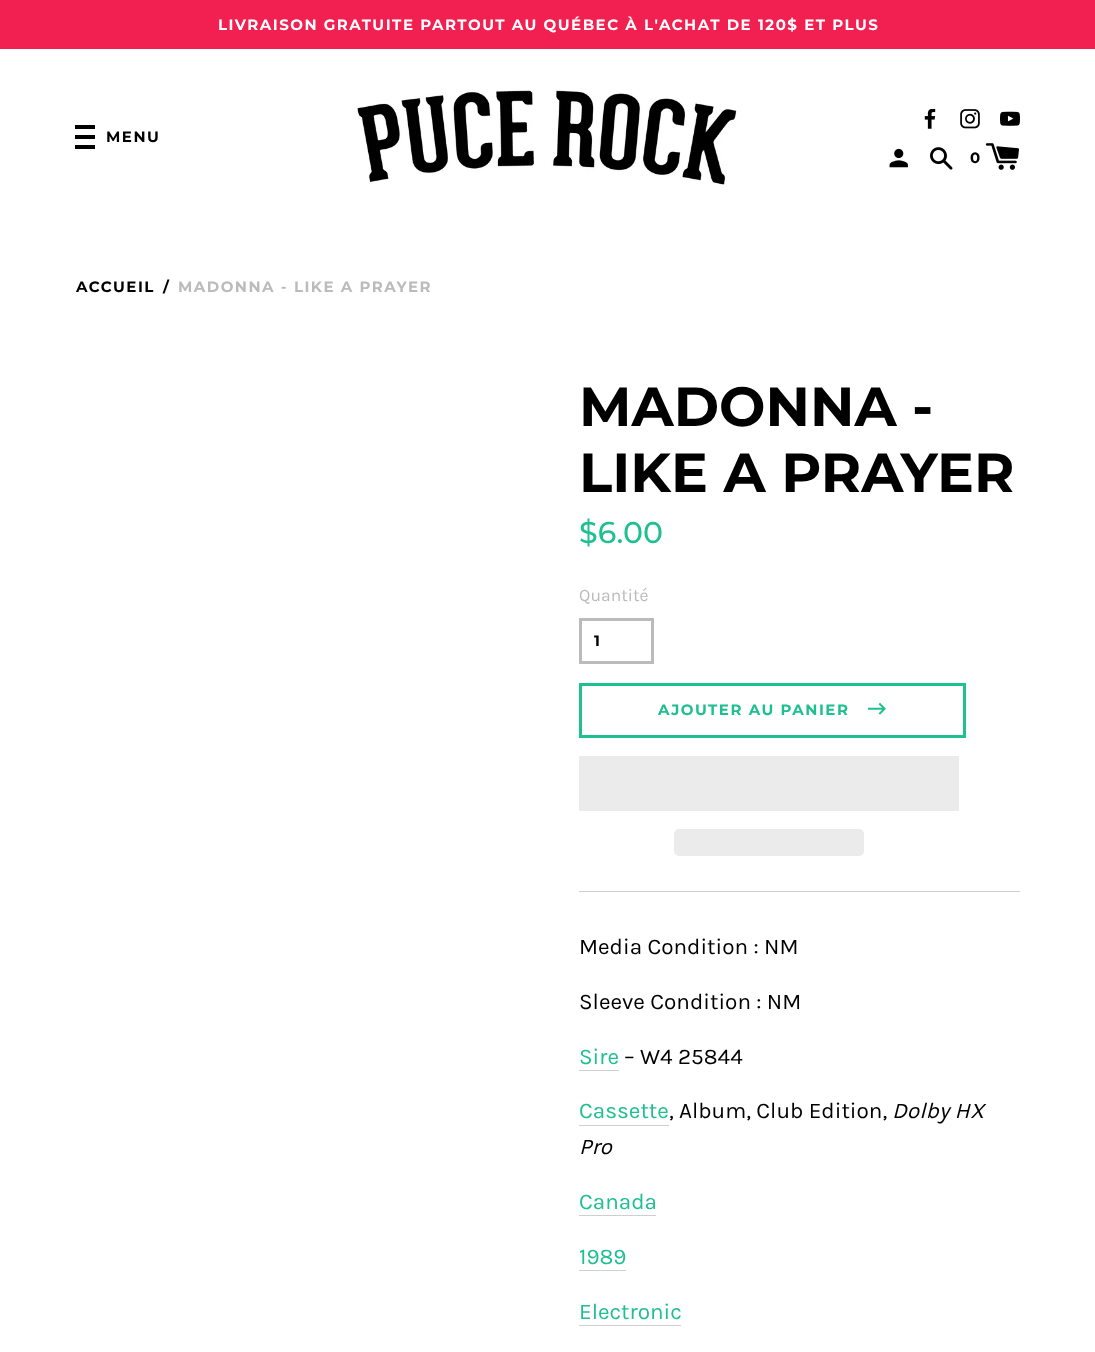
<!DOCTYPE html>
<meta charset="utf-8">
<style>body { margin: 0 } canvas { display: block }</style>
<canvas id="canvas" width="1095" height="1352"></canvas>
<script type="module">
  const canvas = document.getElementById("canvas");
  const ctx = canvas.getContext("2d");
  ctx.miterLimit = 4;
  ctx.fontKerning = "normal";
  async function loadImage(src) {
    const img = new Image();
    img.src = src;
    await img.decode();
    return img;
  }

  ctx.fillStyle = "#ffffff";
  ctx.fillRect(0, 0, 1095, 1352);
  ctx.fillStyle = "#f22051";
  ctx.fillRect(0, 0, 1095, 49);
  ctx.letterSpacing = "1.5px";
  ctx.font = "bold 15px Montserrat";
  ctx.fillStyle = "#ffffff";
  ctx.fillText("LIVRAISON GRATUITE PARTOUT AU QUÉBEC À L'ACHAT DE 120$ ET PLUS", 218, 30);
  ctx.fillStyle = "#000000";
  ctx.fillRect(75, 125, 20, 4);
  ctx.fillRect(75, 135, 20, 4);
  ctx.fillRect(75, 145, 20, 4);
  ctx.fillText("MENU", 106, 142);
  ctx.drawImage(await loadImage("img1.png"), 356, 89, 381, 96);
  ctx.drawImage(await loadImage("img2.png"), 924, 109, 12, 20);
  ctx.drawImage(await loadImage("img3.png"), 960, 109, 20, 20);
  ctx.drawImage(await loadImage("img4.png"), 1000, 111, 20, 15);
  ctx.drawImage(await loadImage("img5.png"), 889, 148, 19, 20);
  ctx.drawImage(await loadImage("img6.png"), 930, 147, 23, 23);
  ctx.letterSpacing = "0px";
  ctx.fillText("0", 970, 163);
  ctx.drawImage(await loadImage("img7.png"), 985, 143, 34, 27);
  ctx.letterSpacing = "1.5px";
  ctx.fillText("ACCUEIL", 76, 292);
  ctx.fillText("/", 163, 292);
  ctx.fillStyle = "#bbbbbb";
  ctx.fillText("MADONNA - LIKE A PRAYER", 178, 292);
  ctx.letterSpacing = "0px";
  ctx.font = "bold 55px Montserrat";
  ctx.fillStyle = "#000000";
  ctx.fillText("MADONNA -", 579, 426);
  ctx.fillText("LIKE A PRAYER", 579, 492);
  ctx.font = "500 30px Montserrat";
  ctx.fillStyle = "#1ebf90";
  ctx.fillText("$6.00", 579, 543);
  ctx.font = "17.5px Karla";
  ctx.fillStyle = "#bbbbbb";
  ctx.fillText("Quantité", 579, 601);
  ctx.strokeStyle = "#bbbbbb";
  ctx.lineWidth = 3;
  ctx.strokeRect(580.5, 619.5, 72, 43);
  ctx.letterSpacing = "1.5px";
  ctx.font = "bold 15px Montserrat";
  ctx.fillStyle = "#000000";
  ctx.fillText("1", 594, 646);
  ctx.strokeStyle = "#1ebf90";
  ctx.strokeRect(580.5, 684.5, 384, 52);
  ctx.fillStyle = "#1ebf90";
  ctx.fillText("AJOUTER AU PANIER", 658, 715);
  ctx.drawImage(await loadImage("img8.png"), 868, 702, 18, 13);
  ctx.fillStyle = "#ebebeb";
  ctx.fillRect(579, 756, 380, 55);
  ctx.beginPath();
  ctx.roundRect(674, 829, 190, 27, 5);
  ctx.fill();
  ctx.fillStyle = "#cfcfcf";
  ctx.fillRect(579, 891, 441, 1);
  ctx.letterSpacing = "0px";
  ctx.font = "22.5px Karla";
  ctx.fillStyle = "#000000";
  ctx.fillText("Media Condition : NM", 579, 954);
  ctx.fillText("Sleeve Condition : NM", 579, 1009);
  ctx.fillStyle = "#1ebf90";
  ctx.fillText("Sire", 579, 1064);
  ctx.fillStyle = "#cfcfcf";
  ctx.fillRect(579, 1070, 40, 1);
  ctx.fillStyle = "#000000";
  ctx.fillText("– W4 25844", 624, 1064);
  ctx.fillStyle = "#1ebf90";
  ctx.fillText("Cassette", 579, 1118);
  ctx.fillStyle = "#cfcfcf";
  ctx.fillRect(579, 1125, 90, 1);
  ctx.fillStyle = "#000000";
  ctx.fillText(", Album, Club Edition,", 669, 1118);
  ctx.font = "italic 22.5px Karla";
  ctx.fillText("Dolby HX", 892, 1118);
  ctx.fillText("Pro", 579, 1154);
  ctx.font = "22.5px Karla";
  ctx.fillStyle = "#1ebf90";
  ctx.fillText("Canada", 579, 1209);
  ctx.fillStyle = "#cfcfcf";
  ctx.fillRect(579, 1215, 77, 1);
  ctx.fillStyle = "#1ebf90";
  ctx.fillText("1989", 579, 1264);
  ctx.fillStyle = "#cfcfcf";
  ctx.fillRect(579, 1270, 47, 1);
  ctx.fillStyle = "#1ebf90";
  ctx.fillText("Electronic", 579, 1319);
  ctx.fillStyle = "#cfcfcf";
  ctx.fillRect(579, 1325, 102, 1);
</script>
